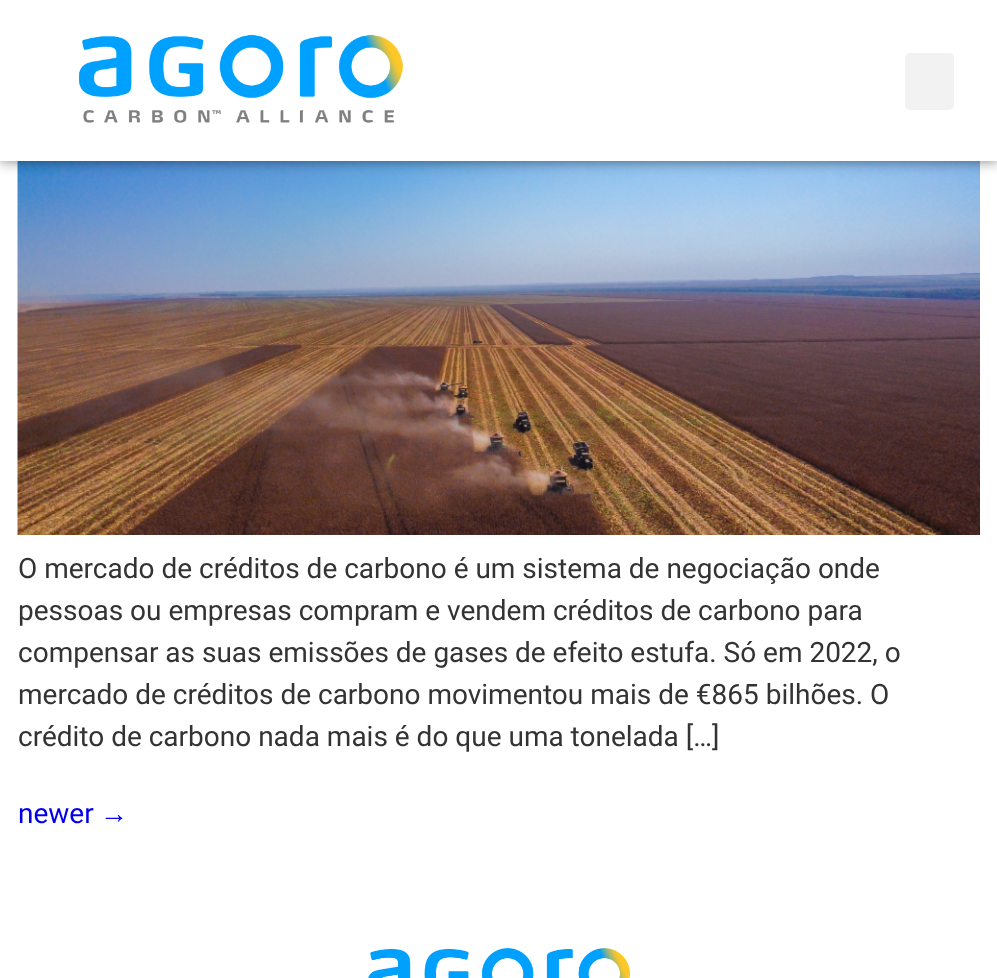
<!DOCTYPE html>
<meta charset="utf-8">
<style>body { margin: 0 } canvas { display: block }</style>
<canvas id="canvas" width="997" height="978"></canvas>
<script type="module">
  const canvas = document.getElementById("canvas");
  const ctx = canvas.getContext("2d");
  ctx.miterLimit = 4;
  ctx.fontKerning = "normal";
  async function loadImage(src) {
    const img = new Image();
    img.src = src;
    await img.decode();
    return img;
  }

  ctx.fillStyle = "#ffffff";
  ctx.fillRect(0, 0, 997, 978);
  ctx.drawImage(await loadImage("img2.png"), 17, 161, 963, 374);
  ctx.fillStyle = "rgba(0, 0, 0, 0.5)";
  ctx.filter = "blur(7px)";
  ctx.beginPath();
  ctx.rect(0, 0, 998, 161);
  ctx.fill();
  ctx.filter = "none";
  ctx.fillStyle = "#ffffff";
  ctx.fillRect(0, 0, 997, 161);
  ctx.drawImage(await loadImage("img1.png"), 79, 34, 324, 89);
  ctx.fillStyle = "#f2f2f2";
  ctx.beginPath();
  ctx.roundRect(905, 53, 49, 57, 5);
  ctx.fill();
  ctx.font = "28px Roboto";
  ctx.fillStyle = "#333333";
  ctx.fillText("O mercado de créditos de carbono é um sistema de negociação onde", 18, 578);
  ctx.fillText("pessoas ou empresas compram e vendem créditos de carbono para", 18, 620);
  ctx.fillText("compensar as suas emissões de gases de efeito estufa. Só em 2022, o", 18, 662);
  ctx.fillText("mercado de créditos de carbono movimentou mais de €865 bilhões. O", 18, 704);
  ctx.fillText("crédito de carbono nada mais é do que uma tonelada […]", 18, 746);
  ctx.fillStyle = "#0000ee";
  ctx.fillText("newer", 18, 823);
  ctx.font = "28px Liberation Sans";
  ctx.fillText("→", 100, 823);
  ctx.drawImage(await loadImage("img3.png"), 368, 948, 262, 30);
</script>
